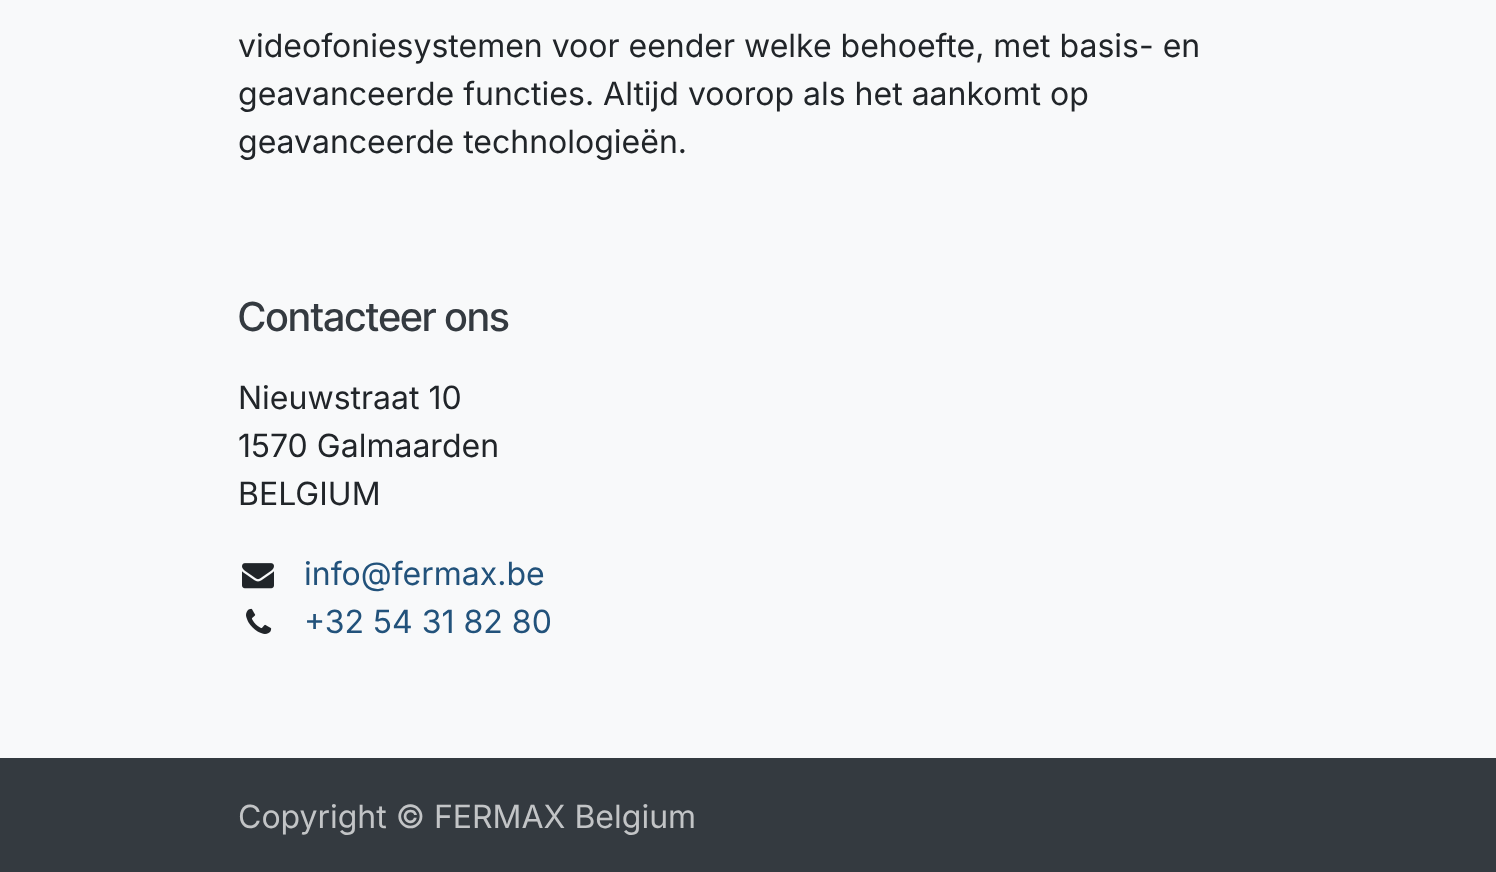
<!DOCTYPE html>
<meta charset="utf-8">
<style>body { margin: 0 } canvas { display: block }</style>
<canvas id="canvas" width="1496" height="872"></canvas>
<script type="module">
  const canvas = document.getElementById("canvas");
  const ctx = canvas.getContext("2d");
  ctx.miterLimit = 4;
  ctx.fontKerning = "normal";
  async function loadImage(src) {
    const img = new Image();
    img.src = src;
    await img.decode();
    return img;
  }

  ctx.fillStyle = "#f8f9fa";
  ctx.fillRect(0, 0, 1496, 872);
  ctx.font = "32px Inter";
  ctx.fillStyle = "#212529";
  ctx.fillText("videofoniesystemen voor eender welke behoefte, met basis- en", 238, 57);
  ctx.fillText("geavanceerde functies. Altijd voorop als het aankomt op", 238, 105);
  ctx.fillText("geavanceerde technologieën.", 238, 153);
  ctx.font = "500 40px Inter Tight";
  ctx.fillStyle = "#343a40";
  ctx.fillText("Contacteer ons", 238, 331);
  ctx.font = "32px Inter";
  ctx.fillStyle = "#212529";
  ctx.fillText("Nieuwstraat 10", 238, 409);
  ctx.fillText("1570 Galmaarden", 238, 457);
  ctx.fillText("BELGIUM", 238, 505);
  ctx.drawImage(await loadImage("img1.png"), 242, 563, 32, 26);
  ctx.fillStyle = "#22527b";
  ctx.fillText("info@fermax.be", 304, 585);
  ctx.drawImage(await loadImage("img2.png"), 246, 608, 26, 26);
  ctx.fillText("+32 54 31 82 80", 304, 633);
  ctx.fillStyle = "#343a40";
  ctx.fillRect(0, 758, 1496, 114);
  ctx.fillStyle = "#c2c4c6";
  ctx.fillText("Copyright © FERMAX Belgium", 238, 828);
</script>
